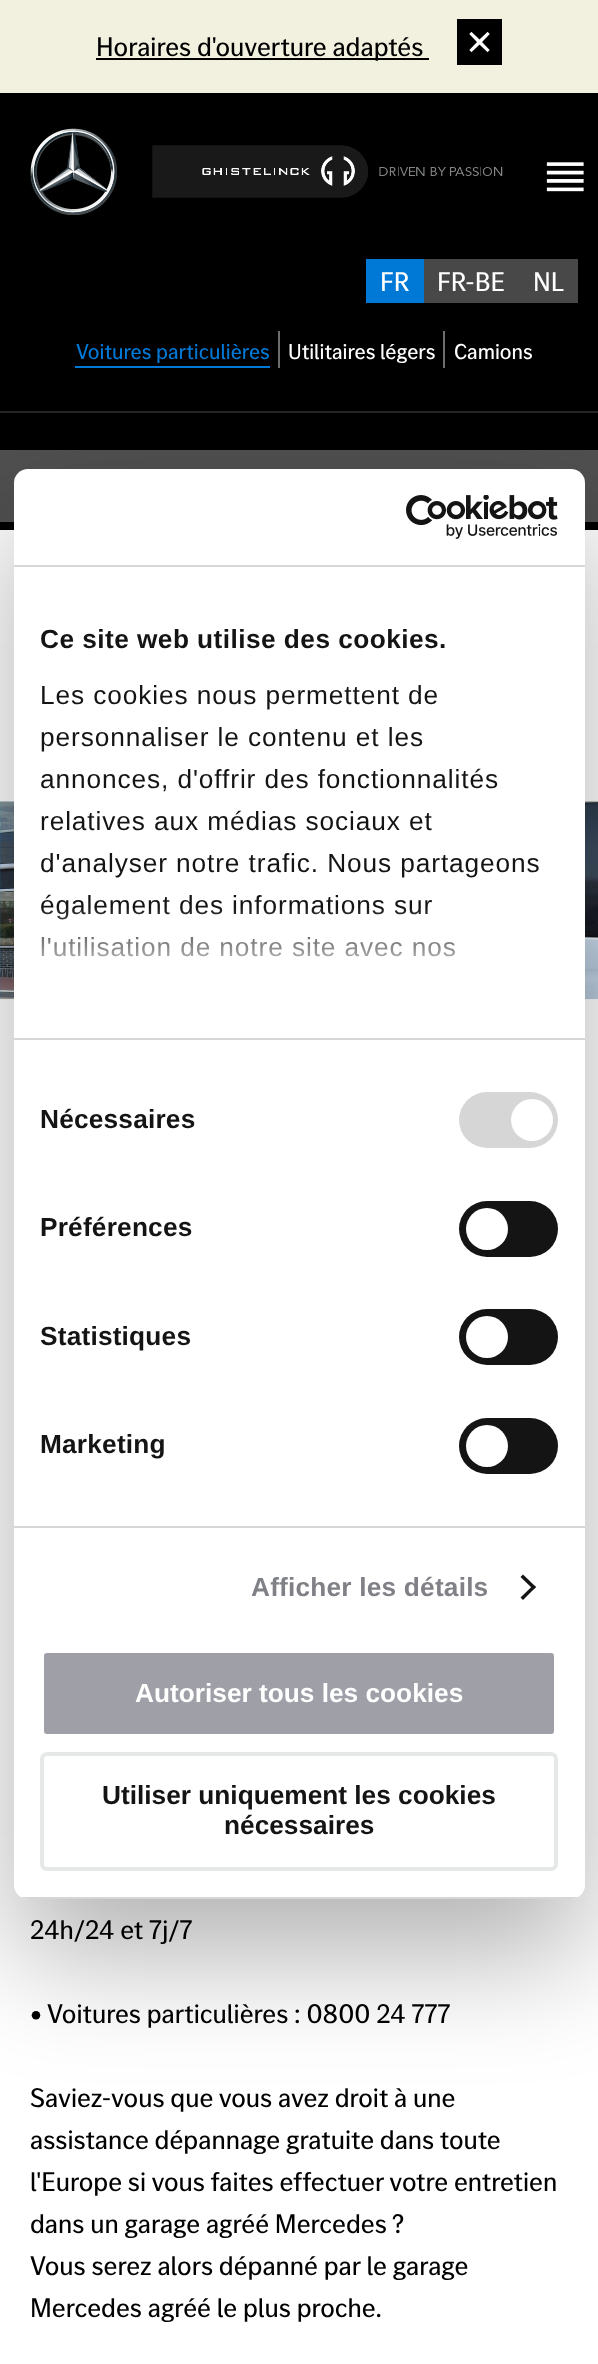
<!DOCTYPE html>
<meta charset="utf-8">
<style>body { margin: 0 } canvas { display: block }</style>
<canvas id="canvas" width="598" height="2364"></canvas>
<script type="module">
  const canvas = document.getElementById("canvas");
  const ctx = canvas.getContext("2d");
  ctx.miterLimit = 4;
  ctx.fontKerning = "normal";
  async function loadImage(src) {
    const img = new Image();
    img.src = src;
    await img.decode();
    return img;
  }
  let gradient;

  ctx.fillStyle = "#ffffff";
  ctx.fillRect(0, 0, 598, 2364);
  ctx.fillStyle = "#f2f1df";
  ctx.fillRect(0, 0, 598, 93);
  ctx.fillStyle = "#000000";
  ctx.fillRect(457, 19, 45, 46);
  ctx.fillRect(96, 58, 333, 2);
  ctx.font = "28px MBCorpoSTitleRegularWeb";
  ctx.fillText("Horaires d'ouverture adaptés", 96, 56);
  ctx.drawImage(await loadImage("img1.png"), 469, 31, 21, 22);
  ctx.fillRect(0, 93, 598, 318);
  ctx.drawImage(await loadImage("img2.png"), 30, 128, 87, 87);
  ctx.drawImage(await loadImage("img3.png"), 152, 145, 351, 53);
  ctx.drawImage(await loadImage("img4.png"), 546, 162, 38, 30);
  ctx.fillStyle = "#0078d6";
  ctx.fillRect(366, 259, 58, 44);
  ctx.fillStyle = "#ffffff";
  ctx.fillText("FR", 380, 291);
  ctx.fillStyle = "#484848";
  ctx.fillRect(424, 259, 154, 44);
  ctx.fillStyle = "#ffffff";
  ctx.fillText("FR-BE", 437, 291);
  ctx.fillText("NL", 533, 291);
  ctx.fillStyle = "#6d6d6d";
  ctx.fillRect(278, 331, 2, 37);
  ctx.font = "22.5px MBCorpoSTitleRegularWeb";
  ctx.fillStyle = "#0078d6";
  ctx.fillText("Voitures particulières", 76, 359);
  ctx.fillRect(75, 366, 195, 2);
  ctx.fillStyle = "#6d6d6d";
  ctx.fillRect(443, 331, 2, 37);
  ctx.fillStyle = "#ffffff";
  ctx.fillText("Utilitaires légers", 288, 359);
  ctx.fillText("Camions", 454, 359);
  ctx.fillStyle = "#000000";
  ctx.fillRect(0, 413, 598, 37);
  ctx.fillStyle = "#262626";
  ctx.fillRect(0, 411, 598, 2);
  ctx.fillStyle = "#505050";
  ctx.fillRect(0, 450, 598, 72);
  ctx.fillStyle = "#000000";
  ctx.fillRect(0, 522, 598, 8);
  ctx.drawImage(await loadImage("img5.png"), 0, 801, 598, 199);
  ctx.font = "28px MBCorpoSTitleRegularWeb";
  ctx.fillText("24h/24 et 7j/7", 30, 1939);
  ctx.fillText("• Voitures particulières : 0800 24 777", 30, 2023);
  ctx.fillText("Saviez-vous que vous avez droit à une", 30, 2107);
  ctx.fillText("assistance dépannage gratuite dans toute", 30, 2149);
  ctx.fillText("l'Europe si vous faites effectuer votre entretien", 30, 2191);
  ctx.fillText("dans un garage agréé Mercedes ?", 30, 2233);
  ctx.fillText("Vous serez alors dépanné par le garage", 30, 2275);
  ctx.fillText("Mercedes agréé le plus proche.", 30, 2317);
  ctx.fillStyle = "rgba(0, 0, 0, 0.3)";
  ctx.filter = "blur(59.5px)";
  ctx.beginPath();
  ctx.roundRect(14, 525, 571, 1430, 14);
  ctx.fill();
  ctx.filter = "none";
  ctx.fillStyle = "#ffffff";
  ctx.beginPath();
  ctx.roundRect(14, 469, 571, 1430, 14);
  ctx.fill();
  ctx.fillStyle = "#d6d6d6";
  ctx.fillRect(14, 565, 571, 2);
  ctx.drawImage(await loadImage("img6.png"), 406, 495, 152, 44);
  ctx.fillRect(14, 1038, 571, 2);
  ctx.letterSpacing = "0.45px";
  ctx.font = "bold 26.25px Liberation Sans";
  ctx.fillStyle = "#141414";
  ctx.fillText("Ce site web utilise des cookies.", 40, 648);
  ctx.letterSpacing = "0.9px";
  ctx.font = "26.25px Liberation Sans";
  ctx.fillText("Les cookies nous permettent de", 40, 704);
  ctx.fillText("personnaliser le contenu et les", 40, 746);
  ctx.fillText("annonces, d'offrir des fonctionnalités", 40, 788);
  ctx.fillText("relatives aux médias sociaux et", 40, 830);
  ctx.fillText("d'analyser notre trafic. Nous partageons", 40, 872);
  ctx.fillText("également des informations sur", 40, 914);
  ctx.fillText("l'utilisation de notre site avec nos", 40, 956);
  gradient = ctx.createLinearGradient(288, 1037, 288, 906);
  gradient.addColorStop(0, "#ffffff");
  gradient.addColorStop(0.5, "rgba(255, 255, 255, 0.8)");
  gradient.addColorStop(1, "rgba(255, 255, 255, 0)");
  ctx.fillStyle = gradient;
  ctx.fillRect(41, 908, 414, 49);
  ctx.fillStyle = "#d6d6d6";
  ctx.fillRect(14, 1526, 571, 2);
  ctx.letterSpacing = "0.2px";
  ctx.font = "bold 26.25px Liberation Sans";
  ctx.fillStyle = "#141414";
  ctx.fillText("Nécessaires", 40, 1128);
  ctx.fillStyle = "#d6d6d6";
  ctx.beginPath();
  ctx.roundRect(459, 1092, 99, 56, 28);
  ctx.fill();
  ctx.fillStyle = "#ffffff";
  ctx.beginPath();
  ctx.arc(532, 1120, 21, 0, Math.PI * 2);
  ctx.fill();
  ctx.fillStyle = "#141414";
  ctx.fillText("Préférences", 40, 1236);
  ctx.beginPath();
  ctx.roundRect(459, 1201, 99, 56, 28);
  ctx.fill();
  ctx.fillStyle = "#ffffff";
  ctx.beginPath();
  ctx.arc(487, 1229, 21, 0, Math.PI * 2);
  ctx.fill();
  ctx.fillStyle = "#141414";
  ctx.fillText("Statistiques", 40, 1345);
  ctx.beginPath();
  ctx.roundRect(459, 1309, 99, 56, 28);
  ctx.fill();
  ctx.fillStyle = "#ffffff";
  ctx.beginPath();
  ctx.arc(487, 1337, 21, 0, Math.PI * 2);
  ctx.fill();
  ctx.fillStyle = "#141414";
  ctx.fillText("Marketing", 40, 1453);
  ctx.beginPath();
  ctx.roundRect(459, 1418, 99, 56, 28);
  ctx.fill();
  ctx.fillStyle = "#ffffff";
  ctx.beginPath();
  ctx.arc(487, 1446, 21, 0, Math.PI * 2);
  ctx.fill();
  ctx.fillStyle = "#808187";
  ctx.fillText("Afficher les détails", 251, 1596);
  ctx.fillStyle = "#141414";
  ctx.beginPath();
  ctx.moveTo(523, 1574.5);
  ctx.lineTo(536, 1587);
  ctx.lineTo(533.5, 1589.5);
  ctx.lineTo(520.5, 1577);
  ctx.closePath();
  ctx.fill();
  ctx.beginPath();
  ctx.moveTo(533.5, 1585);
  ctx.lineTo(536, 1587);
  ctx.lineTo(523, 1600);
  ctx.lineTo(520.5, 1597.5);
  ctx.closePath();
  ctx.fill();
  ctx.save();
  ctx.beginPath();
  ctx.roundRect(14, 469, 571, 1430, 14);
  ctx.clip();
  ctx.fillStyle = "#d6d6d6";
  ctx.fillRect(14, 1897, 571, 2);
  ctx.restore();
  ctx.fillStyle = "#9e9fa7";
  ctx.beginPath();
  ctx.roundRect(42, 1651, 514, 85, 5);
  ctx.fill();
  ctx.strokeStyle = "#ffffff";
  ctx.lineWidth = 4;
  ctx.stroke();
  ctx.letterSpacing = "0px";
  ctx.fillStyle = "#ffffff";
  ctx.fillText("Autoriser tous les cookies", 135, 1702);
  ctx.beginPath();
  ctx.roundRect(42, 1754, 514, 115, 5);
  ctx.strokeStyle = "#e5e8e7";
  ctx.stroke();
  ctx.fillStyle = "#141414";
  ctx.fillText("Utiliser uniquement les cookies", 102, 1804);
  ctx.fillText("nécessaires", 224, 1834);
</script>
